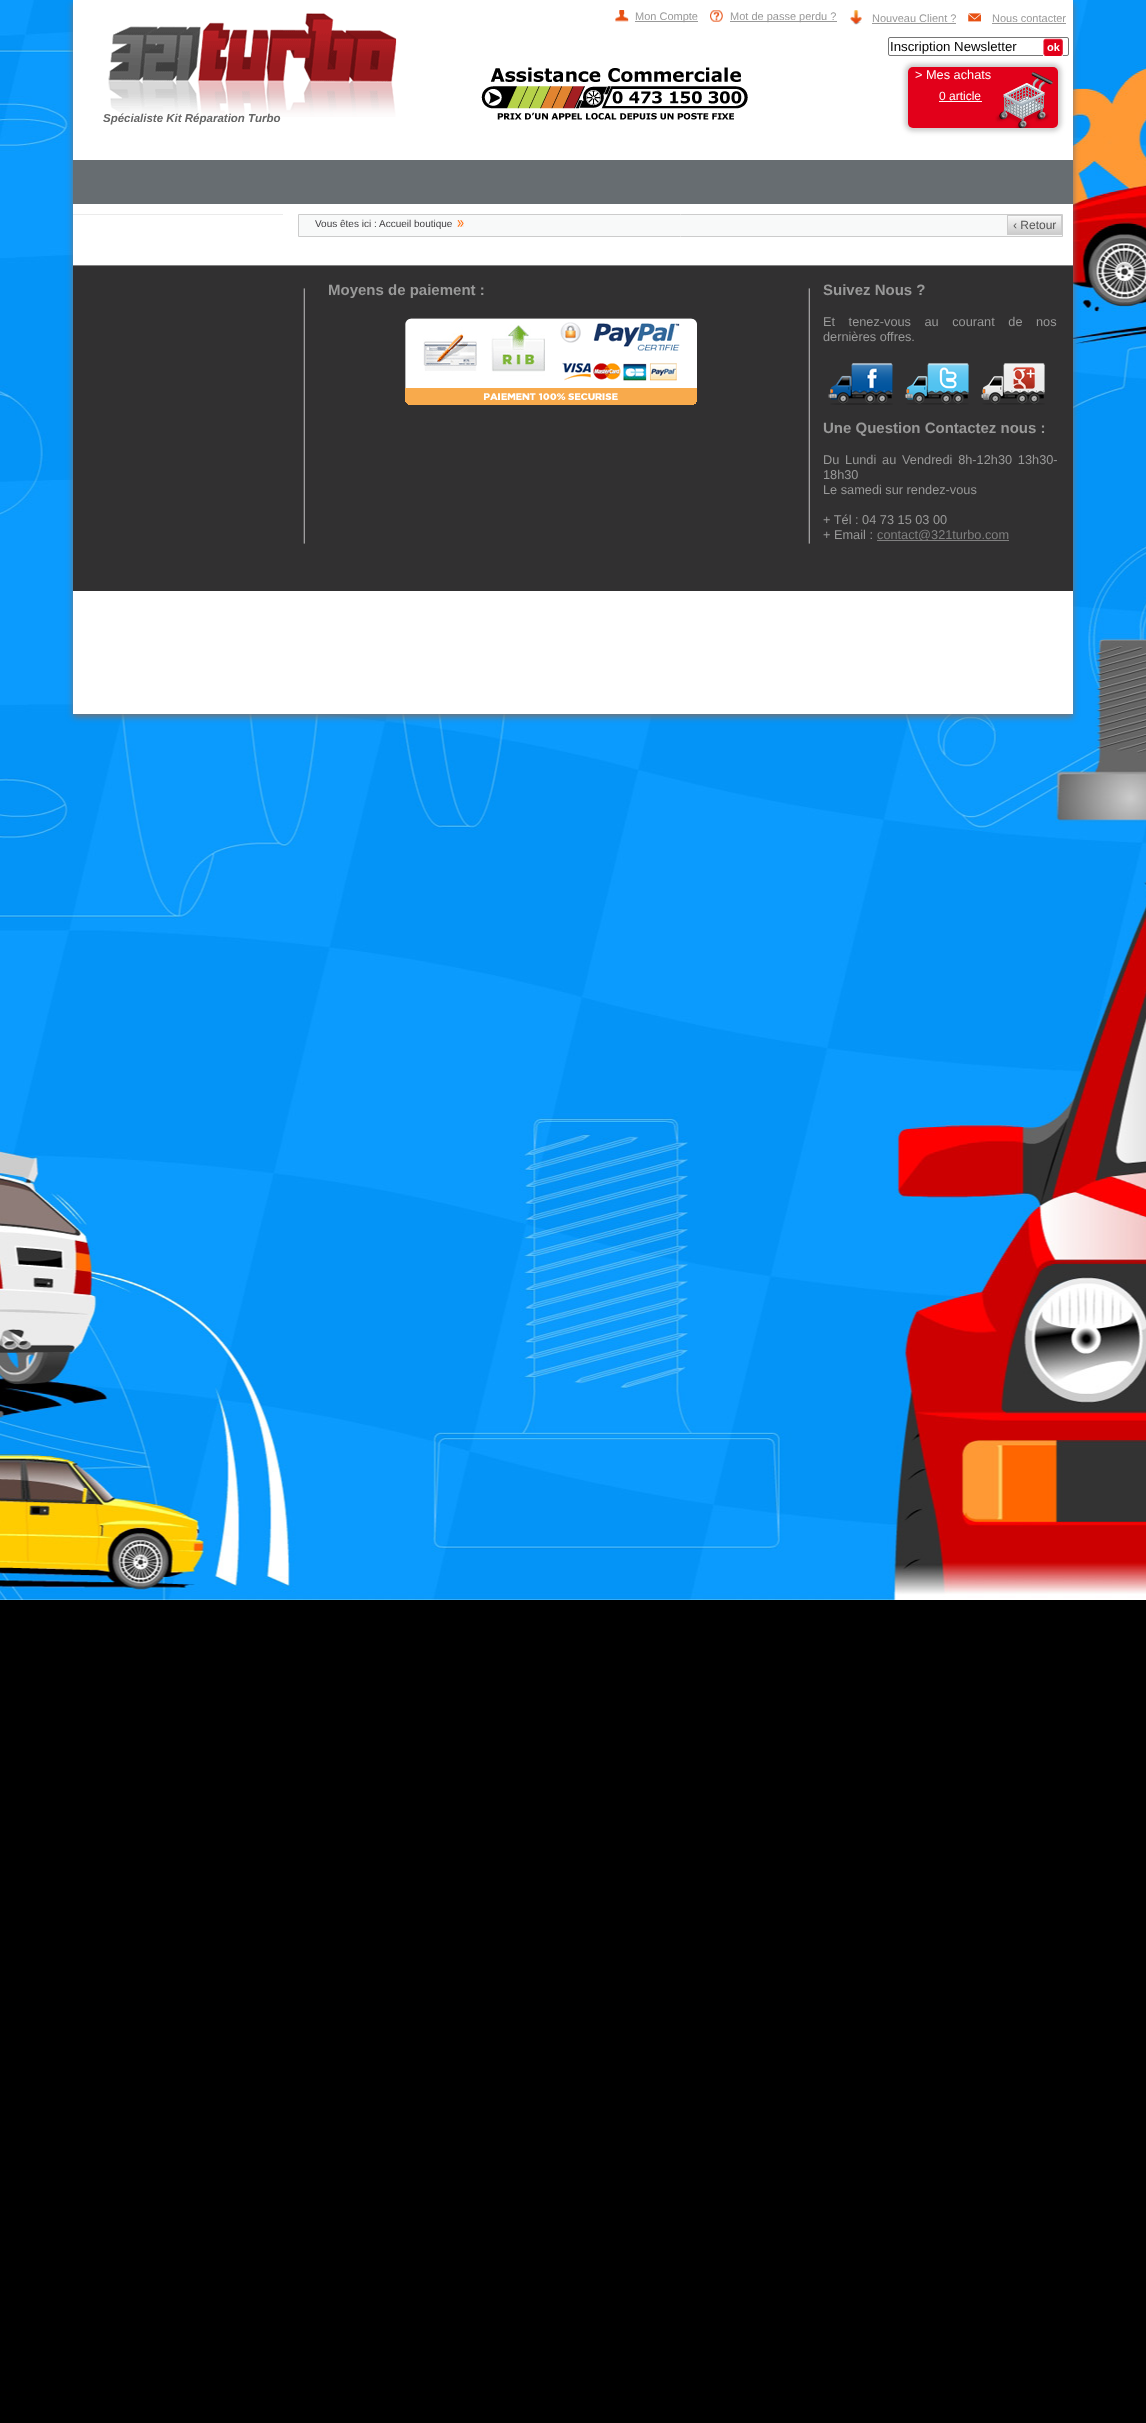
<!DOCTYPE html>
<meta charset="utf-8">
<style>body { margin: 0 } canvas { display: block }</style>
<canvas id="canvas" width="1146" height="2423"></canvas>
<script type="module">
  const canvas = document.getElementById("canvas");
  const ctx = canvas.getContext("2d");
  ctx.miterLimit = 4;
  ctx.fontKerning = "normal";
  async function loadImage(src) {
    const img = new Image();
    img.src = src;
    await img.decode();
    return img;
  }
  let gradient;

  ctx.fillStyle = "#000000";
  ctx.fillRect(0, 0, 1146, 2423);
  ctx.drawImage(await loadImage("img1.png"), 0, 714, 1146, 886);
  ctx.drawImage(await loadImage("img2.png"), 0, 0, 1146, 714);
  ctx.fillStyle = "#757171";
  ctx.filter = "blur(3px)";
  ctx.beginPath();
  ctx.rect(73, 3, 1000, 714);
  ctx.fill();
  ctx.filter = "none";
  ctx.fillStyle = "#ffffff";
  ctx.fillRect(73, 0, 1000, 714);
  ctx.drawImage(await loadImage("img3.png"), 108, 13, 289, 104);
  ctx.drawImage(await loadImage("img4.png"), 615, 10, 14, 12);
  ctx.fillStyle = "#999999";
  ctx.fillRect(635, 21, 63, 1);
  ctx.font = "11px Liberation Sans";
  ctx.fillText("Mon Compte", 635, 20);
  ctx.drawImage(await loadImage("img5.png"), 710, 10, 13, 12);
  ctx.fillRect(730, 21, 107, 1);
  ctx.fillText("Mot de passe perdu ?", 730, 20);
  ctx.drawImage(await loadImage("img6.png"), 850, 10, 12, 15);
  ctx.fillText("Nouveau Client ?", 872, 22);
  ctx.fillRect(872, 23, 84, 1);
  ctx.drawImage(await loadImage("img7.png"), 968, 13, 13, 9);
  ctx.fillText("Nous contacter", 992, 22);
  ctx.fillRect(992, 23, 74, 1);
  ctx.fillStyle = "#c9c9c9";
  ctx.filter = "blur(2.5px)";
  ctx.beginPath();
  ctx.roundRect(905, 64, 156, 67, 8);
  ctx.fill();
  ctx.filter = "none";
  ctx.beginPath();
  ctx.roundRect(888.5, 37.5, 180, 18, 1.5);
  ctx.strokeStyle = "#767676";
  ctx.stroke();
  ctx.font = "13.25px Liberation Sans";
  ctx.fillStyle = "#000000";
  ctx.fillText("Inscription Newsletter", 890, 51);
  ctx.drawImage(await loadImage("img8.png"), 1043, 38, 20, 18);
  ctx.font = "bold 11px Liberation Sans";
  ctx.fillStyle = "#ffffff";
  ctx.fillText("ok", 1047, 51);
  ctx.drawImage(await loadImage("img9.png"), 481, 67, 267, 53);
  ctx.fillStyle = "#e2001a";
  ctx.beginPath();
  ctx.roundRect(908, 67, 150, 61, 5);
  ctx.fill();
  ctx.drawImage(await loadImage("img10.png"), 995, 72, 58, 56);
  ctx.font = "12.75px Liberation Sans";
  ctx.fillStyle = "#ffffff";
  ctx.fillText("> Mes achats", 915, 79);
  ctx.font = "12px Liberation Sans";
  ctx.fillText("0 article", 939, 100);
  ctx.fillRect(939, 101, 43, 1);
  ctx.font = "italic bold 11.5px Liberation Sans";
  ctx.fillStyle = "#666666";
  ctx.fillText("Spécialiste Kit Réparation Turbo", 103, 122);
  ctx.fillStyle = "#676d71";
  ctx.fillRect(73, 160, 1000, 44);
  ctx.fillStyle = "#ebebeb";
  ctx.fillRect(73, 214, 210, 1);
  ctx.fillStyle = "#f8f9f9";
  ctx.beginPath();
  ctx.rect(298.5, 214.5, 764, 22);
  ctx.fill();
  ctx.strokeStyle = "#cccccc";
  ctx.stroke();
  ctx.font = "10px Liberation Sans";
  ctx.fillStyle = "#3e3d40";
  ctx.fillText("Vous êtes ici :", 315, 227);
  ctx.fillText("Accueil boutique", 379, 227);
  ctx.drawImage(await loadImage("img11.png"), 457, 220, 7, 7);
  gradient = ctx.createLinearGradient(1008, 216, 1008, 234);
  gradient.addColorStop(0, "#f8f8f8");
  gradient.addColorStop(1, "#cccccc");
  ctx.fillStyle = gradient;
  ctx.fillRect(1008, 217, 53, 17);
  ctx.strokeRect(1007.5, 215.5, 54, 19);
  ctx.font = "12px Liberation Sans";
  ctx.fillStyle = "#555555";
  ctx.fillText("‹ Retour", 1013, 229);
  ctx.fillStyle = "#313031";
  ctx.fillRect(73, 266, 1000, 325);
  ctx.fillStyle = "#818181";
  ctx.fillRect(73, 265, 1000, 1);
  ctx.drawImage(await loadImage("img12.png"), 303, 288, 2, 256);
  ctx.font = "bold 15px Liberation Sans";
  ctx.fillStyle = "#999999";
  ctx.fillText("Moyens de paiement :", 328, 295);
  ctx.drawImage(await loadImage("img13.png"), 405, 318, 292, 87);
  ctx.drawImage(await loadImage("img12.png"), 808, 288, 2, 256);
  ctx.fillText("Suivez Nous ?", 823, 295);
  ctx.wordSpacing = "10px";
  ctx.font = "12.75px Liberation Sans";
  ctx.fillText("Et tenez-vous au courant de nos", 823, 326);
  ctx.wordSpacing = "0px";
  ctx.fillText("dernières offres.", 823, 341);
  ctx.drawImage(await loadImage("img14.png"), 828, 363, 65, 42);
  ctx.drawImage(await loadImage("img15.png"), 905, 363, 64, 42);
  ctx.drawImage(await loadImage("img16.png"), 981, 363, 64, 42);
  ctx.font = "bold 15px Liberation Sans";
  ctx.fillText("Une Question Contactez nous :", 823, 433);
  ctx.wordSpacing = "2.25px";
  ctx.font = "12.75px Liberation Sans";
  ctx.fillText("Du Lundi au Vendredi 8h-12h30 13h30-", 823, 464);
  ctx.wordSpacing = "0px";
  ctx.fillText("18h30", 823, 479);
  ctx.fillText("Le samedi sur rendez-vous", 823, 494);
  ctx.fillText("+ Tél : 04 73 15 03 00", 823, 524);
  ctx.fillText("+ Email :", 823, 539);
  ctx.fillStyle = "#808080";
  ctx.fillRect(877, 540, 132, 1);
  ctx.fillText("contact@321turbo.com", 877, 539);
</script>
